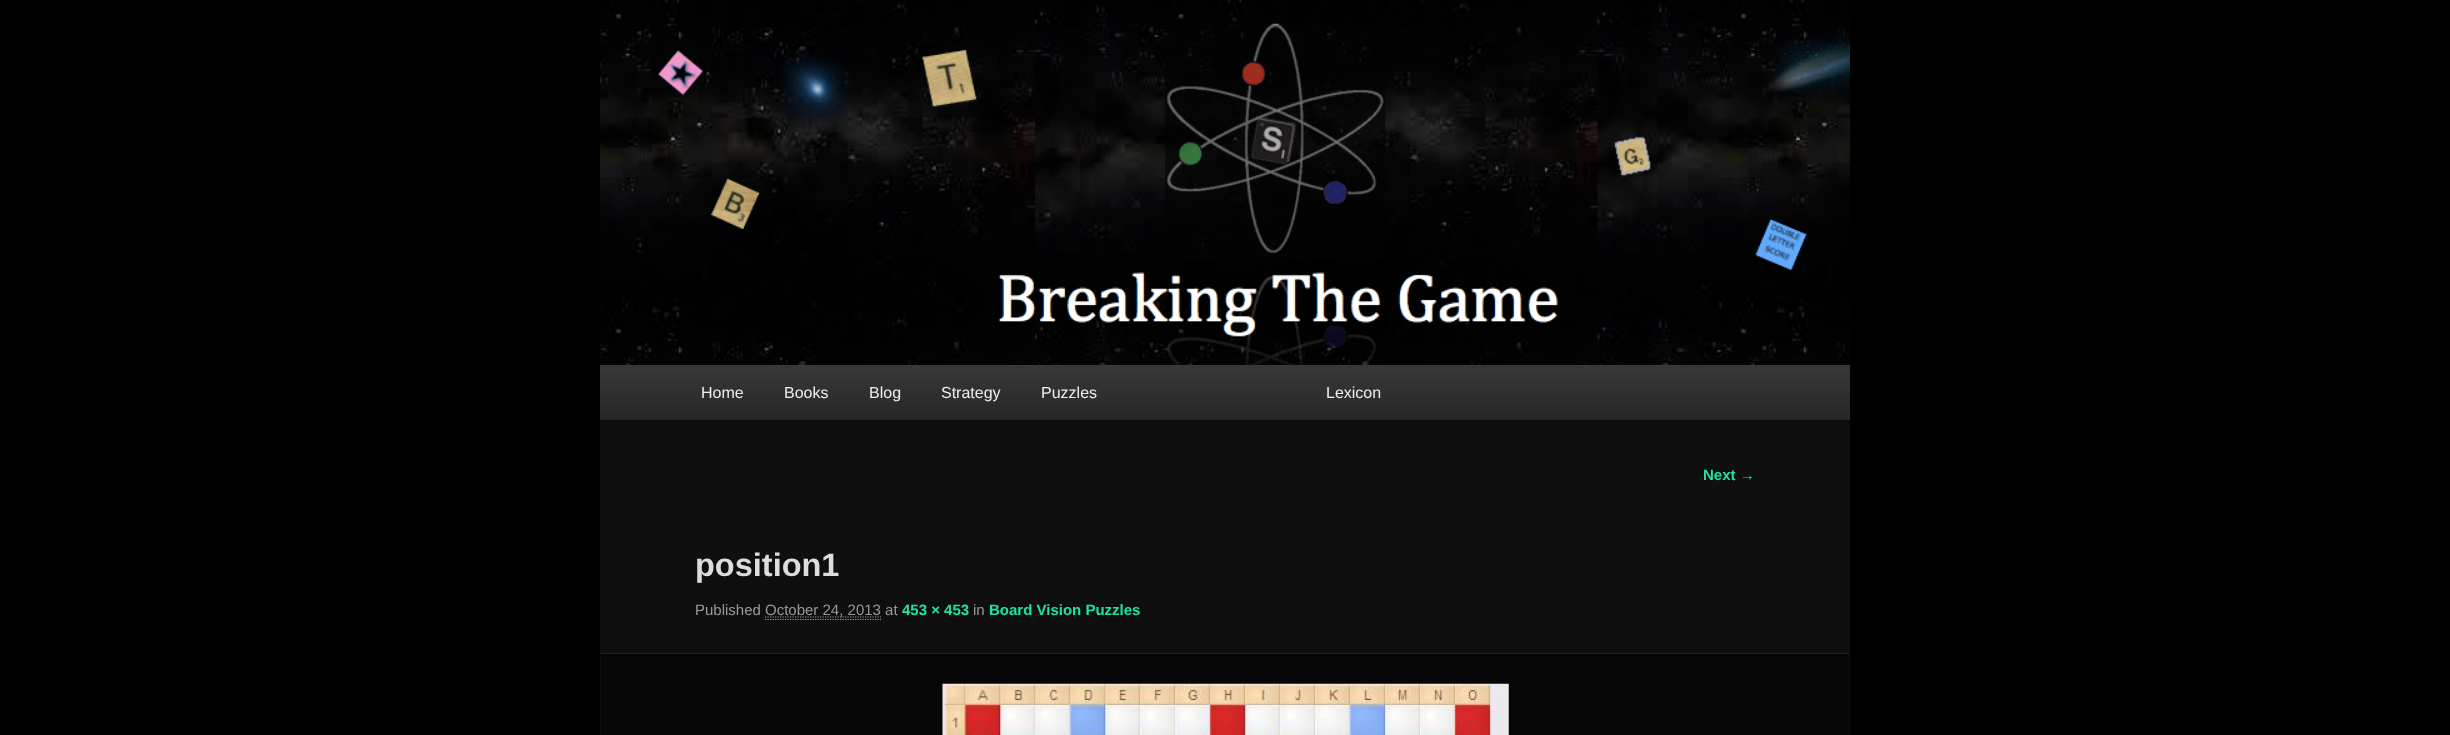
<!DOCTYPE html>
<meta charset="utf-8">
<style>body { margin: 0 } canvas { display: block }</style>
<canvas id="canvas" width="2450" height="735"></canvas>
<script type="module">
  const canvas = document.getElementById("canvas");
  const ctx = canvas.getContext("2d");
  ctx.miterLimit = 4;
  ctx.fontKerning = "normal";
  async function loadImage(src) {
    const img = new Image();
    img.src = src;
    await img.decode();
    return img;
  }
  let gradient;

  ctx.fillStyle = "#000000";
  ctx.fillRect(0, 0, 2450, 735);
  ctx.fillStyle = "#0f0f0f";
  ctx.fillRect(600, 420, 1250, 315);
  ctx.drawImage(await loadImage("img1.png"), 600, 0, 1250, 365);
  gradient = ctx.createLinearGradient(1225, 365, 1225, 419);
  gradient.addColorStop(0, "#383838");
  gradient.addColorStop(1, "#272727");
  ctx.fillStyle = gradient;
  ctx.fillRect(600, 365, 1250, 54);
  ctx.fillStyle = "#222222";
  ctx.fillRect(600, 419, 1250, 1);
  ctx.font = "16px Liberation Sans";
  ctx.fillStyle = "#eeeeee";
  ctx.fillText("Home", 701, 398);
  ctx.fillText("Books", 784, 398);
  ctx.fillText("Blog", 869, 398);
  ctx.fillText("Strategy", 941, 398);
  ctx.fillText("Puzzles", 1041, 398);
  ctx.fillText("Lexicon", 1326, 398);
  ctx.font = "bold 15px Liberation Sans";
  ctx.fillStyle = "#1fe49e";
  ctx.fillText("Next →", 1703, 480);
  ctx.font = "bold 32.5px Liberation Sans";
  ctx.fillStyle = "#dddddd";
  ctx.fillText("position1", 695, 576);
  ctx.font = "15px Liberation Sans";
  ctx.fillStyle = "#999999";
  ctx.fillText("Published", 695, 615);
  ctx.beginPath();
  ctx.moveTo(765, 617);
  ctx.lineTo(881, 617);
  ctx.strokeStyle = "#999999";
  ctx.lineWidth = 1.2;
  ctx.setLineDash([1.25, 1.25]);
  ctx.stroke();
  ctx.fillText("October 24, 2013 at", 765, 615);
  ctx.beginPath();
  ctx.moveTo(765, 619.5);
  ctx.lineTo(881, 619.5);
  ctx.stroke();
  ctx.font = "bold 15px Liberation Sans";
  ctx.fillStyle = "#1fe49e";
  ctx.fillText("453 × 453", 902, 615);
  ctx.font = "15px Liberation Sans";
  ctx.fillStyle = "#999999";
  ctx.fillText("in", 973, 615);
  ctx.font = "bold 15px Liberation Sans";
  ctx.fillStyle = "#1fe49e";
  ctx.fillText("Board Vision Puzzles", 989, 615);
  ctx.fillStyle = "#060606";
  ctx.fillRect(601, 654, 1248, 81);
  ctx.fillStyle = "#222222";
  ctx.fillRect(601, 653, 1248, 1);
  ctx.drawImage(await loadImage("img2.png"), 942, 683, 567, 52);
</script>
